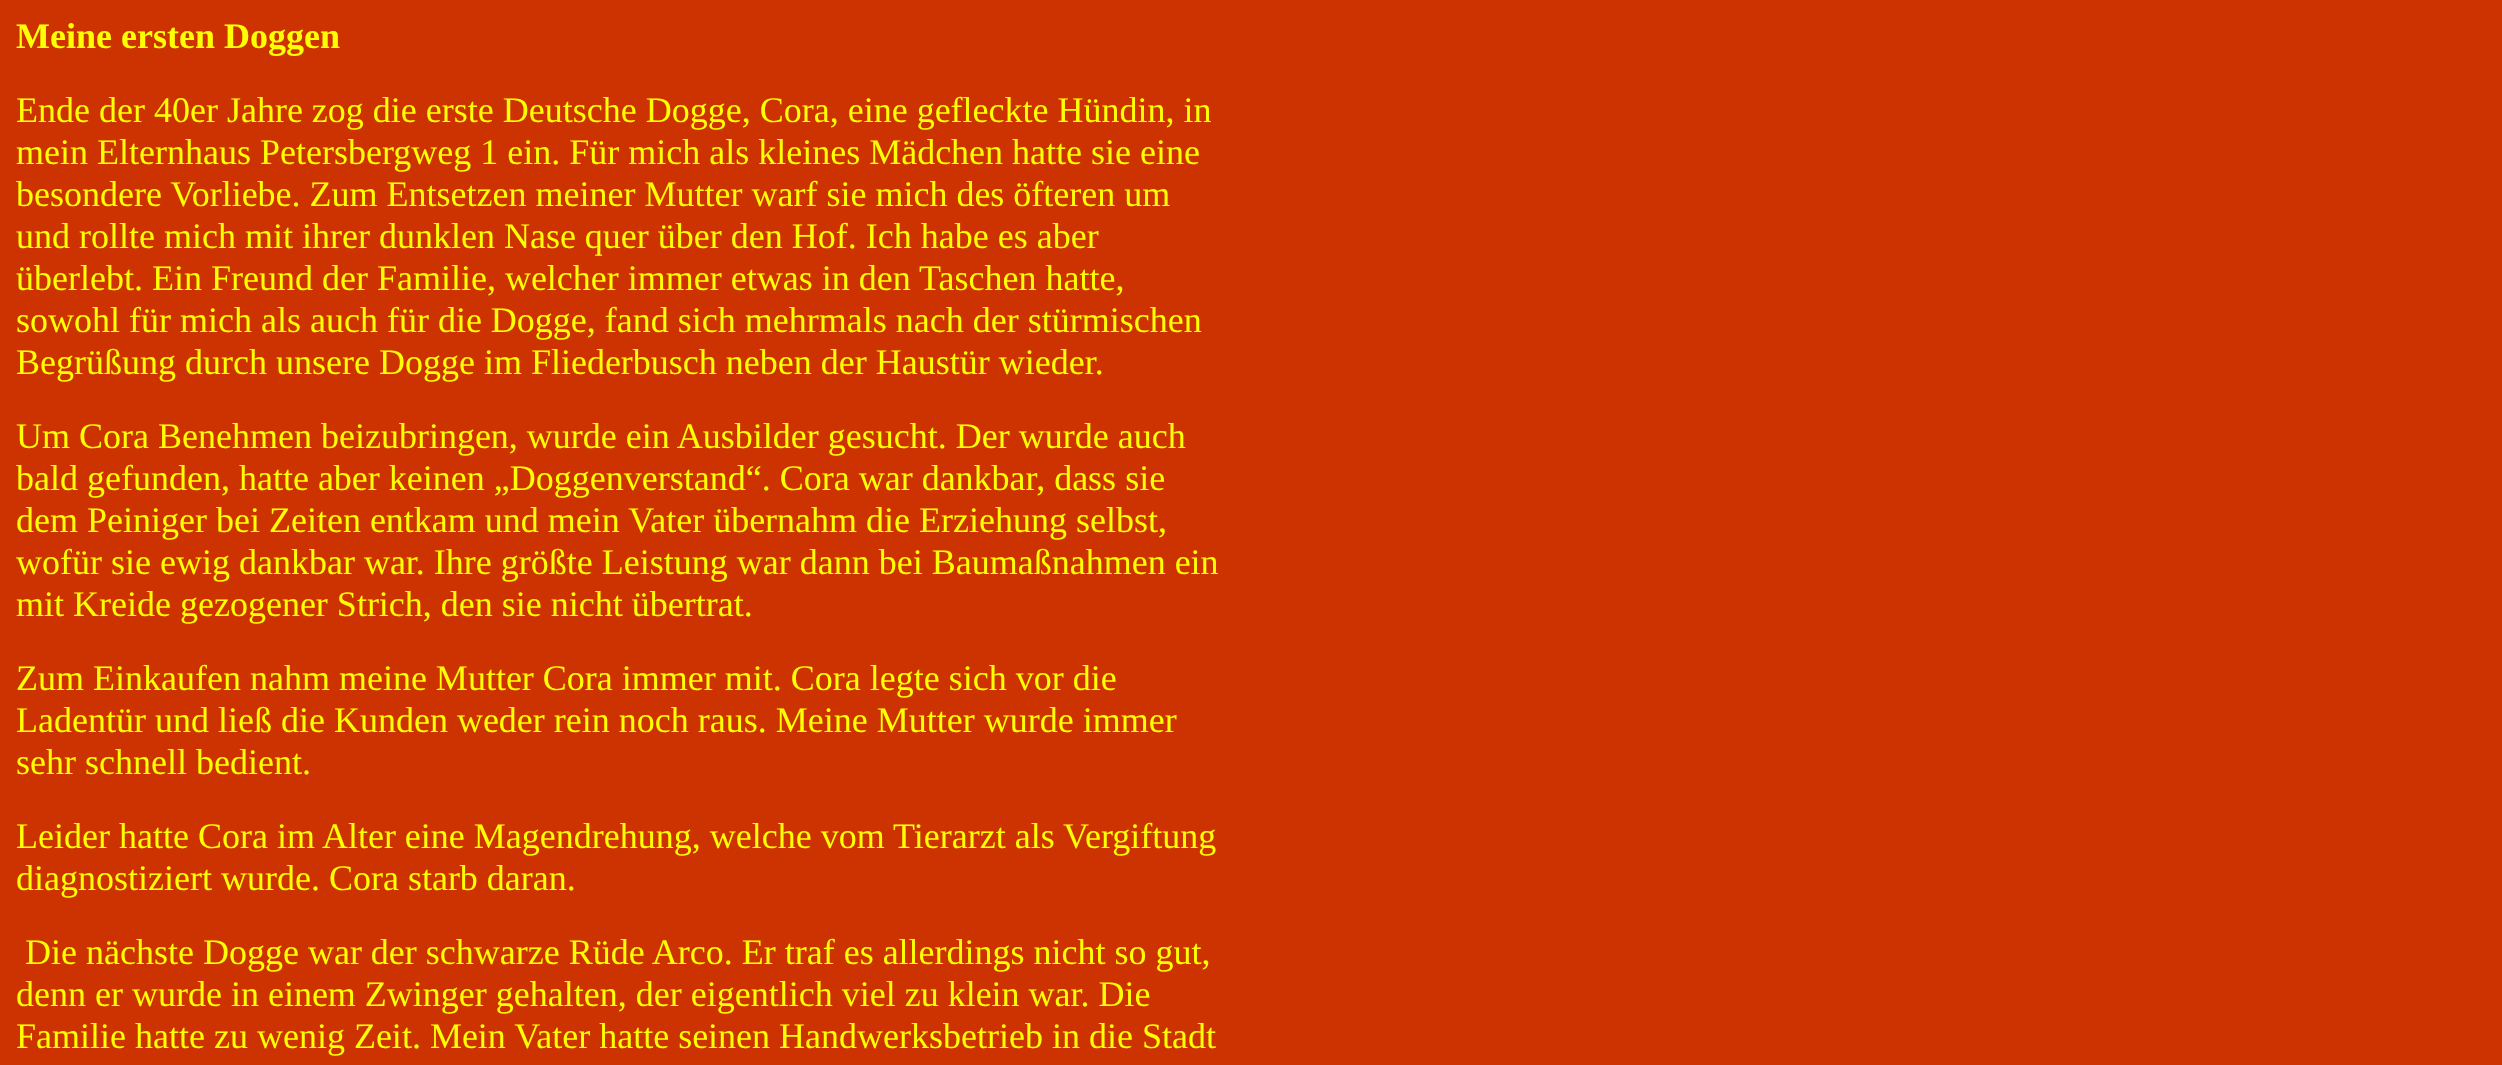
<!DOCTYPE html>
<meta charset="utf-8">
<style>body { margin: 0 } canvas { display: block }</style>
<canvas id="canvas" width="2502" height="1065"></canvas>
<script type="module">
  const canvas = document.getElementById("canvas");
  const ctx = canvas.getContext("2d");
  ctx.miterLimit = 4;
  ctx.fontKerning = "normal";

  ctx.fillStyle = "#cc3300";
  ctx.fillRect(0, 0, 2502, 1065);
  ctx.font = "bold 36px Liberation Serif";
  ctx.fillStyle = "#ffff00";
  ctx.fillText("Meine ersten Doggen", 16, 48);
  ctx.font = "36px Liberation Serif";
  ctx.fillText("Ende der 40er Jahre zog die erste Deutsche Dogge, Cora, eine gefleckte Hündin, in", 16, 122);
  ctx.fillText("mein Elternhaus Petersbergweg 1 ein. Für mich als kleines Mädchen hatte sie eine", 16, 164);
  ctx.fillText("besondere Vorliebe. Zum Entsetzen meiner Mutter warf sie mich des öfteren um", 16, 206);
  ctx.fillText("und rollte mich mit ihrer dunklen Nase quer über den Hof. Ich habe es aber", 16, 248);
  ctx.fillText("überlebt. Ein Freund der Familie, welcher immer etwas in den Taschen hatte,", 16, 290);
  ctx.fillText("sowohl für mich als auch für die Dogge, fand sich mehrmals nach der stürmischen", 16, 332);
  ctx.fillText("Begrüßung durch unsere Dogge im Fliederbusch neben der Haustür wieder.", 16, 374);
  ctx.fillText("Um Cora Benehmen beizubringen, wurde ein Ausbilder gesucht. Der wurde auch", 16, 448);
  ctx.fillText("bald gefunden, hatte aber keinen „Doggenverstand“. Cora war dankbar, dass sie", 16, 490);
  ctx.fillText("dem Peiniger bei Zeiten entkam und mein Vater übernahm die Erziehung selbst,", 16, 532);
  ctx.fillText("wofür sie ewig dankbar war. Ihre größte Leistung war dann bei Baumaßnahmen ein", 16, 574);
  ctx.fillText("mit Kreide gezogener Strich, den sie nicht übertrat.", 16, 616);
  ctx.fillText("Zum Einkaufen nahm meine Mutter Cora immer mit. Cora legte sich vor die", 16, 690);
  ctx.fillText("Ladentür und ließ die Kunden weder rein noch raus. Meine Mutter wurde immer", 16, 732);
  ctx.fillText("sehr schnell bedient.", 16, 774);
  ctx.fillText("Leider hatte Cora im Alter eine Magendrehung, welche vom Tierarzt als Vergiftung", 16, 848);
  ctx.fillText("diagnostiziert wurde. Cora starb daran.", 16, 890);
  ctx.fillText("Die nächste Dogge war der schwarze Rüde Arco. Er traf es allerdings nicht so gut,", 25, 964);
  ctx.fillText("denn er wurde in einem Zwinger gehalten, der eigentlich viel zu klein war. Die", 16, 1006);
  ctx.fillText("Familie hatte zu wenig Zeit. Mein Vater hatte seinen Handwerksbetrieb in die Stadt", 16, 1048);
</script>
